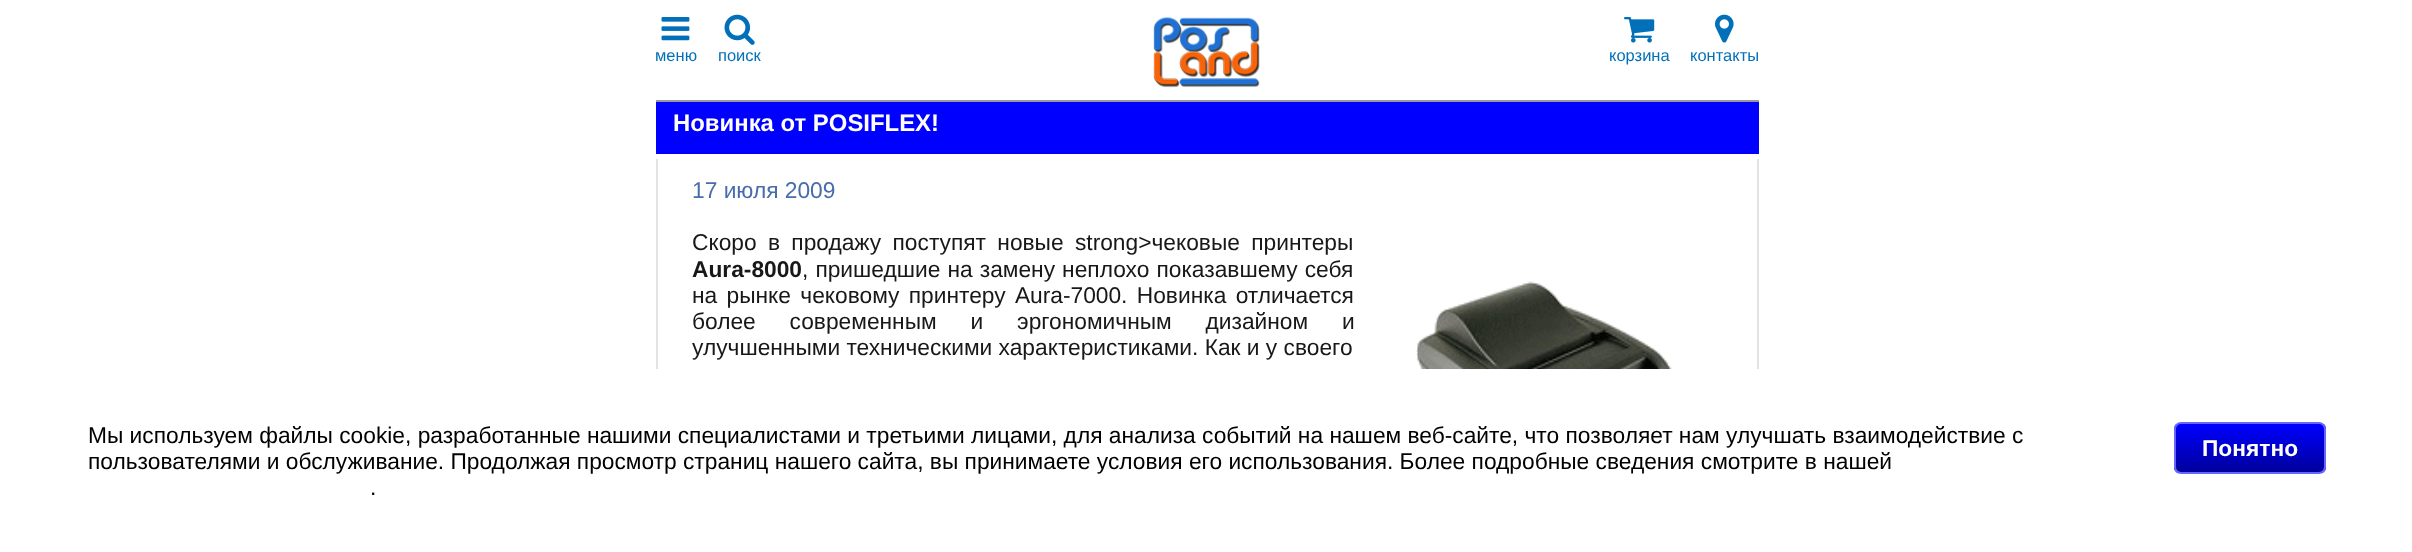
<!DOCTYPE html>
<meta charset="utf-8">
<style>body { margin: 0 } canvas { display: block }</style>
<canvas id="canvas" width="2412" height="552"></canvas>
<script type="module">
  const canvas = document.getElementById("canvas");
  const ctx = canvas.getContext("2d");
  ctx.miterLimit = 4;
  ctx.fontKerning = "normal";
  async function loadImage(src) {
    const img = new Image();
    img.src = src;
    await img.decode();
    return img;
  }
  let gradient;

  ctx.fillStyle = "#ffffff";
  ctx.fillRect(0, 0, 2412, 552);
  ctx.fillStyle = "#999999";
  ctx.fillRect(656, 100, 1103, 2);
  ctx.drawImage(await loadImage("img1.png"), 661, 17, 29, 24);
  ctx.font = "16.5px Liberation Sans";
  ctx.fillStyle = "#0270b8";
  ctx.fillText("меню", 655, 61);
  ctx.drawImage(await loadImage("img2.png"), 724, 14, 31, 31);
  ctx.fillText("поиск", 718, 61);
  ctx.drawImage(await loadImage("img3.png"), 1153, 17, 107, 71);
  ctx.drawImage(await loadImage("img4.png"), 1624, 17, 31, 26);
  ctx.fillText("корзина", 1609, 61);
  ctx.drawImage(await loadImage("img5.png"), 1715, 14, 19, 29);
  ctx.fillText("контакты", 1690, 61);
  ctx.fillStyle = "#0000ff";
  ctx.fillRect(656, 102, 1103, 52);
  ctx.font = "bold 23.9px Liberation Sans";
  ctx.fillStyle = "#ffffff";
  ctx.fillText("Новинка от POSIFLEX!", 673, 131);
  ctx.fillStyle = "#e3e3e3";
  ctx.fillRect(1757, 159, 2, 210);
  ctx.fillRect(656, 159, 2, 210);
  ctx.font = "22.75px Liberation Sans";
  ctx.fillStyle = "#486daa";
  ctx.fillText("17 июля 2009", 692, 198);
  ctx.wordSpacing = "5px";
  ctx.fillStyle = "#181818";
  ctx.fillText("Скоро в продажу поступят новые strong>чековые принтеры", 692, 250);
  ctx.wordSpacing = "0px";
  ctx.font = "bold 22.75px Liberation Sans";
  ctx.fillText("Aura-8000", 692, 277);
  ctx.wordSpacing = "0.75px";
  ctx.font = "22.75px Liberation Sans";
  ctx.fillText(", пришедшие на замену неплохо показавшему себя", 802, 277);
  ctx.wordSpacing = "3px";
  ctx.fillText("на рынке чековому принтеру Aura-7000. Новинка отличается", 692, 303);
  ctx.wordSpacing = "27.5px";
  ctx.fillText("более современным и эргономичным дизайном и", 692, 329);
  ctx.wordSpacing = "0px";
  ctx.fillText("улучшенными техническими характеристиками. Как и у своего", 692, 355);
  ctx.drawImage(await loadImage("img6.png"), 1415, 281, 257, 88);
  ctx.fillStyle = "#000000";
  ctx.fillText("Мы используем файлы cookie, разработанные нашими специалистами и третьими лицами, для анализа событий на нашем веб-сайте, что позволяет нам улучшать взаимодействие с", 88, 443);
  ctx.save();
  ctx.beginPath();
  ctx.roundRect(2174, 422, 152, 52, 7);
  ctx.clip();
  gradient = ctx.createLinearGradient(2250, 424, 2250, 473);
  gradient.addColorStop(0, "#0000ff");
  gradient.addColorStop(1, "#000099");
  ctx.fillStyle = gradient;
  ctx.fillRect(2174, 424, 152, 49);
  ctx.restore();
  ctx.beginPath();
  ctx.roundRect(2175, 423, 150, 50, 6);
  ctx.strokeStyle = "#6666ff";
  ctx.lineWidth = 2;
  ctx.stroke();
  ctx.font = "bold 22.75px Liberation Sans";
  ctx.fillStyle = "#ffffff";
  ctx.fillText("Понятно", 2202, 456);
  ctx.font = "22.75px Liberation Sans";
  ctx.fillStyle = "#000000";
  ctx.fillText("пользователями и обслуживание. Продолжая просмотр страниц нашего сайта, вы принимаете условия его использования. Более подробные сведения смотрите в нашей", 88, 469);
  ctx.fillText(".", 370, 495);
</script>
